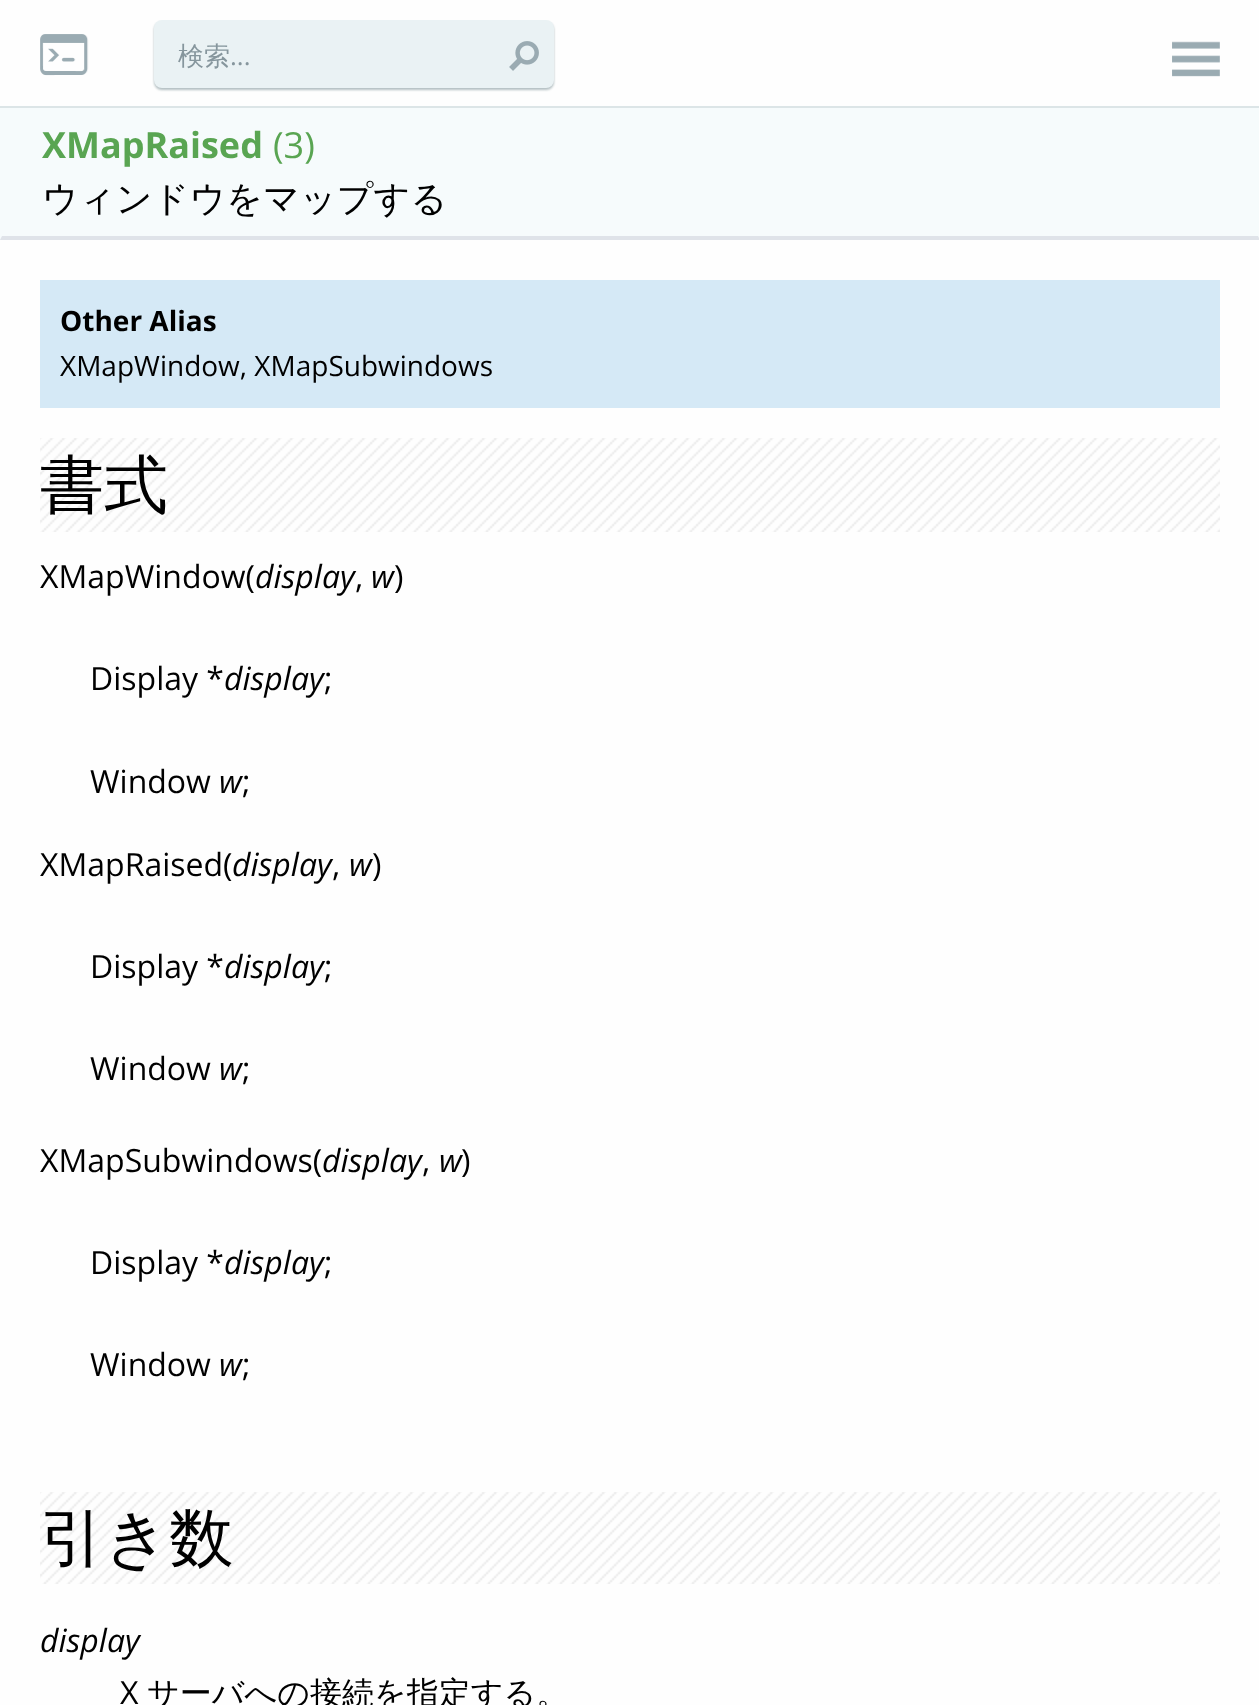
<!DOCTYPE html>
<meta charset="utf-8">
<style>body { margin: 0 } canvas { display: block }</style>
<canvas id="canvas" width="1259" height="1705"></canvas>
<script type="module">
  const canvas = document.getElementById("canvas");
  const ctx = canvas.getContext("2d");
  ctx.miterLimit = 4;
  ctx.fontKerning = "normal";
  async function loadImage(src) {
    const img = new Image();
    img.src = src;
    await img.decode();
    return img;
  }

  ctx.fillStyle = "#fefefe";
  ctx.fillRect(0, 0, 1259, 1705);
  ctx.fillStyle = "#dce5e7";
  ctx.fillRect(0, 106, 1259, 2);
  ctx.drawImage(await loadImage("img1.png"), 40, 34, 49, 42);
  ctx.fillStyle = "rgba(6, 47, 55, 0.3)";
  ctx.filter = "blur(1px)";
  ctx.beginPath();
  ctx.roundRect(154, 22, 400, 68, 8);
  ctx.fill();
  ctx.filter = "none";
  ctx.fillStyle = "#eaf2f4";
  ctx.beginPath();
  ctx.roundRect(154, 20, 400, 68, 8);
  ctx.fill();
  ctx.font = "500 26px WenQuanYi Zen Hei";
  ctx.fillStyle = "#86969d";
  ctx.fillText("検索", 178, 65);
  ctx.font = "26px Open Sans";
  ctx.fillText("...", 230, 65);
  ctx.drawImage(await loadImage("img2.png"), 509, 41, 30, 30);
  ctx.drawImage(await loadImage("img3.png"), 1172, 41, 48, 36);
  ctx.fillStyle = "#f6fbfc";
  ctx.fillRect(0, 108, 1259, 132);
  ctx.fillStyle = "#dfe3e9";
  ctx.beginPath();
  ctx.moveTo(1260, 240);
  ctx.lineTo(0, 240);
  ctx.lineTo(2, 236);
  ctx.lineTo(1258, 236);
  ctx.closePath();
  ctx.fill();
  ctx.font = "bold 36px Open Sans";
  ctx.fillStyle = "#59a552";
  ctx.fillText("XMapRaised", 42, 158);
  ctx.font = "36px Open Sans";
  ctx.fillText("(3)", 273, 158);
  ctx.font = "500 36px WenQuanYi Zen Hei";
  ctx.fillStyle = "#000000";
  ctx.fillText("ウィンドウをマップする", 42, 211);
  ctx.fillStyle = "#d5e9f6";
  ctx.fillRect(40, 280, 1180, 128);
  ctx.font = "bold 28px Open Sans";
  ctx.fillStyle = "#000000";
  ctx.fillText("Other Alias", 60, 331);
  ctx.font = "28px Open Sans";
  ctx.fillText("XMapWindow, XMapSubwindows", 60, 376);
  ctx.drawImage(await loadImage("img4.png"), 40, 438, 1180, 94);
  ctx.font = "500 64px WenQuanYi Zen Hei";
  ctx.fillText("書式", 40, 507);
  ctx.font = "32px Open Sans";
  ctx.fillText("XMapWindow(", 40, 588);
  ctx.font = "italic 32px Open Sans";
  ctx.fillText("display", 255, 588);
  ctx.font = "32px Open Sans";
  ctx.fillText(",", 355, 588);
  ctx.font = "italic 32px Open Sans";
  ctx.fillText("w", 371, 588);
  ctx.font = "32px Open Sans";
  ctx.fillText(")", 394, 588);
  ctx.fillText("Display *", 90, 690);
  ctx.font = "italic 32px Open Sans";
  ctx.fillText("display", 224, 690);
  ctx.font = "32px Open Sans";
  ctx.fillText(";", 324, 690);
  ctx.fillText("Window", 90, 793);
  ctx.font = "italic 32px Open Sans";
  ctx.fillText("w", 219, 793);
  ctx.font = "32px Open Sans";
  ctx.fillText(";", 242, 793);
  ctx.fillText("XMapRaised(", 40, 876);
  ctx.font = "italic 32px Open Sans";
  ctx.fillText("display", 232, 876);
  ctx.font = "32px Open Sans";
  ctx.fillText(",", 332, 876);
  ctx.font = "italic 32px Open Sans";
  ctx.fillText("w", 349, 876);
  ctx.font = "32px Open Sans";
  ctx.fillText(")", 372, 876);
  ctx.fillText("Display *", 90, 978);
  ctx.font = "italic 32px Open Sans";
  ctx.fillText("display", 224, 978);
  ctx.font = "32px Open Sans";
  ctx.fillText(";", 324, 978);
  ctx.fillText("Window", 90, 1080);
  ctx.font = "italic 32px Open Sans";
  ctx.fillText("w", 219, 1080);
  ctx.font = "32px Open Sans";
  ctx.fillText(";", 242, 1080);
  ctx.fillText("XMapSubwindows(", 40, 1172);
  ctx.font = "italic 32px Open Sans";
  ctx.fillText("display", 322, 1172);
  ctx.font = "32px Open Sans";
  ctx.fillText(",", 422, 1172);
  ctx.font = "italic 32px Open Sans";
  ctx.fillText("w", 439, 1172);
  ctx.font = "32px Open Sans";
  ctx.fillText(")", 461, 1172);
  ctx.fillText("Display *", 90, 1274);
  ctx.font = "italic 32px Open Sans";
  ctx.fillText("display", 224, 1274);
  ctx.font = "32px Open Sans";
  ctx.fillText(";", 324, 1274);
  ctx.fillText("Window", 90, 1376);
  ctx.font = "italic 32px Open Sans";
  ctx.fillText("w", 219, 1376);
  ctx.font = "32px Open Sans";
  ctx.fillText(";", 242, 1376);
  ctx.drawImage(await loadImage("img5.png"), 40, 1492, 1180, 92);
  ctx.font = "500 64px WenQuanYi Zen Hei";
  ctx.fillText("引き数", 40, 1560);
  ctx.font = "italic 32px Open Sans";
  ctx.fillText("display", 40, 1652);
  ctx.font = "32px Open Sans";
  ctx.fillText("X", 120, 1704);
  ctx.font = "500 32px WenQuanYi Zen Hei";
  ctx.fillText("サーバへの接続を指定する。", 147, 1704);
</script>
